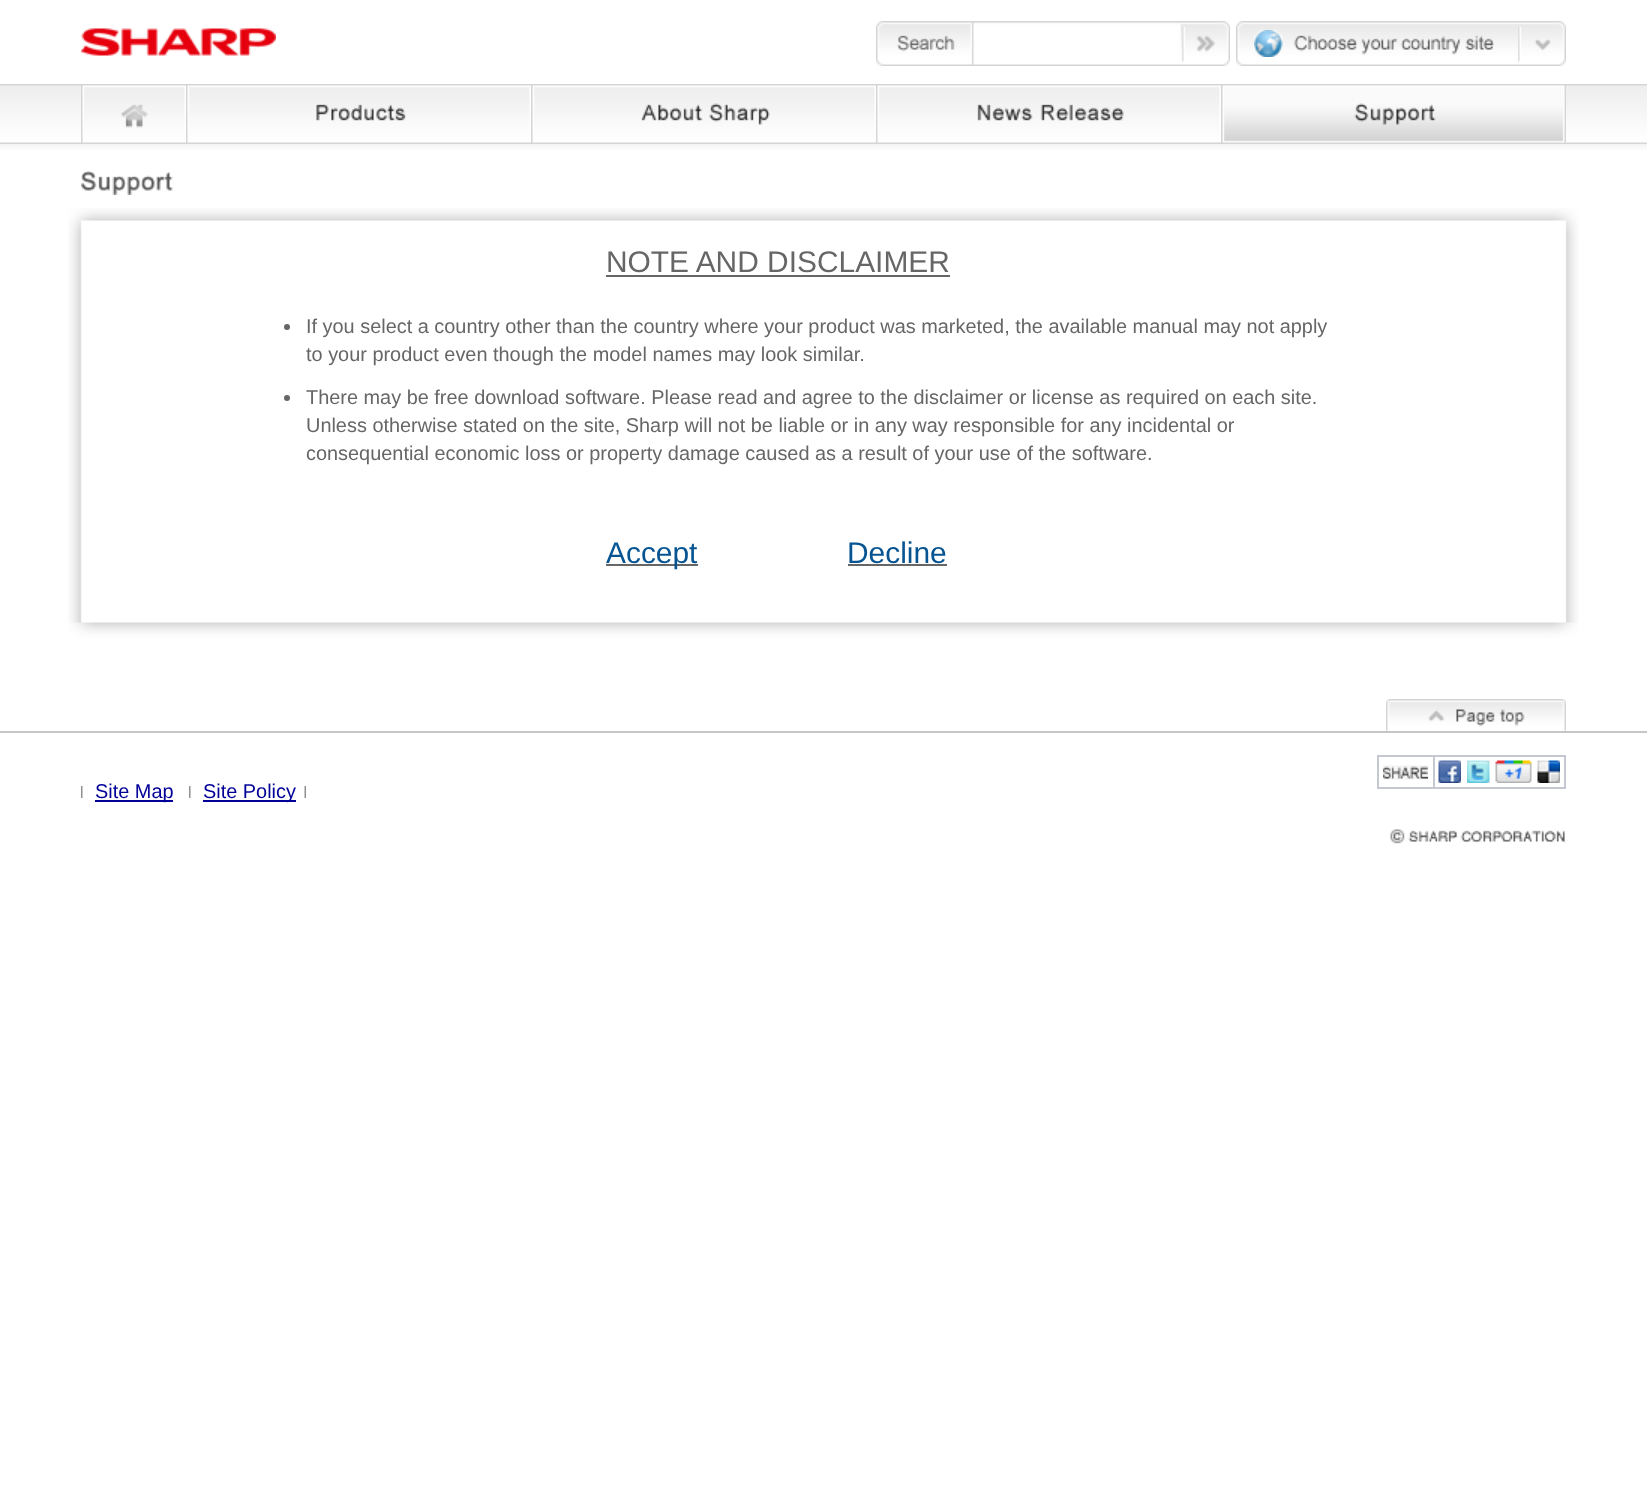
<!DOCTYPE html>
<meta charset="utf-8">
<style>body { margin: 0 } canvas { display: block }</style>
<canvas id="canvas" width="1647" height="1495"></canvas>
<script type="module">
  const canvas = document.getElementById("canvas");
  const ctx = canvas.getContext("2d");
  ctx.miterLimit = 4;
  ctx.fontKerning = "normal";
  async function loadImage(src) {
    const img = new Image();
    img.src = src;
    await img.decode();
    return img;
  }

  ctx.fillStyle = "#ffffff";
  ctx.fillRect(0, 0, 1647, 1495);
  ctx.drawImage(await loadImage("img1.png"), 81, 28, 195, 28);
  ctx.drawImage(await loadImage("img2.png"), 973, 21, 208, 45);
  ctx.drawImage(await loadImage("img3.png"), 876, 21, 98, 45);
  ctx.drawImage(await loadImage("img4.png"), 1180, 21, 50, 45);
  ctx.drawImage(await loadImage("img5.png"), 1236, 21, 282, 45);
  ctx.drawImage(await loadImage("img6.png"), 1254, 30, 240, 27);
  ctx.drawImage(await loadImage("img7.png"), 1518, 21, 48, 45);
  ctx.drawImage(await loadImage("img8.png"), 0, 84, 1647, 60);
  ctx.drawImage(await loadImage("img9.png"), 81, 84, 105, 60);
  ctx.drawImage(await loadImage("img10.png"), 186, 84, 345, 60);
  ctx.drawImage(await loadImage("img11.png"), 531, 84, 345, 60);
  ctx.drawImage(await loadImage("img12.png"), 876, 84, 345, 60);
  ctx.drawImage(await loadImage("img13.png"), 1221, 84, 345, 60);
  ctx.drawImage(await loadImage("img14.png"), 0, 144, 1647, 6);
  ctx.drawImage(await loadImage("img15.png"), 81, 171, 92, 24);
  ctx.drawImage(await loadImage("img16.png"), 68, 208, 1511, 415);
  ctx.drawImage(await loadImage("img17.png"), 68, 622, 1511, 17);
  ctx.font = "29.9px Liberation Sans";
  ctx.fillStyle = "#666666";
  ctx.fillText("NOTE AND DISCLAIMER", 606, 272);
  ctx.fillRect(606, 275, 344, 2);
  ctx.beginPath();
  ctx.arc(287, 327, 3, 0, Math.PI * 2);
  ctx.fill();
  ctx.font = "19.92px Liberation Sans";
  ctx.fillText("If you select a country other than the country where your product was marketed, the available manual may not apply", 306, 333);
  ctx.fillText("to your product even though the model names may look similar.", 306, 361);
  ctx.beginPath();
  ctx.arc(287, 398, 3, 0, Math.PI * 2);
  ctx.fill();
  ctx.fillText("There may be free download software. Please read and agree to the disclaimer or license as required on each site.", 306, 404);
  ctx.fillText("Unless otherwise stated on the site, Sharp will not be liable or in any way responsible for any incidental or", 306, 432);
  ctx.fillText("consequential economic loss or property damage caused as a result of your use of the software.", 306, 460);
  ctx.fillRect(606, 564, 92, 2);
  ctx.font = "29.9px Liberation Sans";
  ctx.fillStyle = "#065492";
  ctx.fillText("Accept", 606, 563);
  ctx.fillText("Decline", 847, 563);
  ctx.fillStyle = "#666666";
  ctx.fillRect(848, 564, 99, 2);
  ctx.drawImage(await loadImage("img18.png"), 1386, 699, 180, 32);
  ctx.fillStyle = "#c6c6c6";
  ctx.fillRect(0, 731, 1647, 2);
  ctx.strokeStyle = "#c5c7d1";
  ctx.lineWidth = 2;
  ctx.strokeRect(1378, 756, 187, 32);
  ctx.fillStyle = "#c5c7d1";
  ctx.fillRect(1433, 756, 2, 33);
  ctx.drawImage(await loadImage("img19.png"), 1383, 765, 45, 15);
  ctx.drawImage(await loadImage("img20.png"), 1438, 760, 23, 23);
  ctx.drawImage(await loadImage("img21.png"), 1467, 760, 23, 23);
  ctx.drawImage(await loadImage("img22.png"), 1495, 760, 37, 23);
  ctx.drawImage(await loadImage("img23.png"), 1537, 760, 23, 23);
  ctx.drawImage(await loadImage("img24.png"), 304, 786, 2, 12);
  ctx.drawImage(await loadImage("img25.png"), 81, 786, 2, 12);
  ctx.fillStyle = "#000099";
  ctx.fillRect(95, 800, 78, 2);
  ctx.font = "19.92px Liberation Sans";
  ctx.fillText("Site Map", 95, 798);
  ctx.drawImage(await loadImage("img25.png"), 189, 786, 2, 12);
  ctx.fillRect(203, 800, 93, 2);
  ctx.fillText("Site Policy", 203, 798);
  ctx.drawImage(await loadImage("img26.png"), 1390, 829, 176, 15);
</script>
